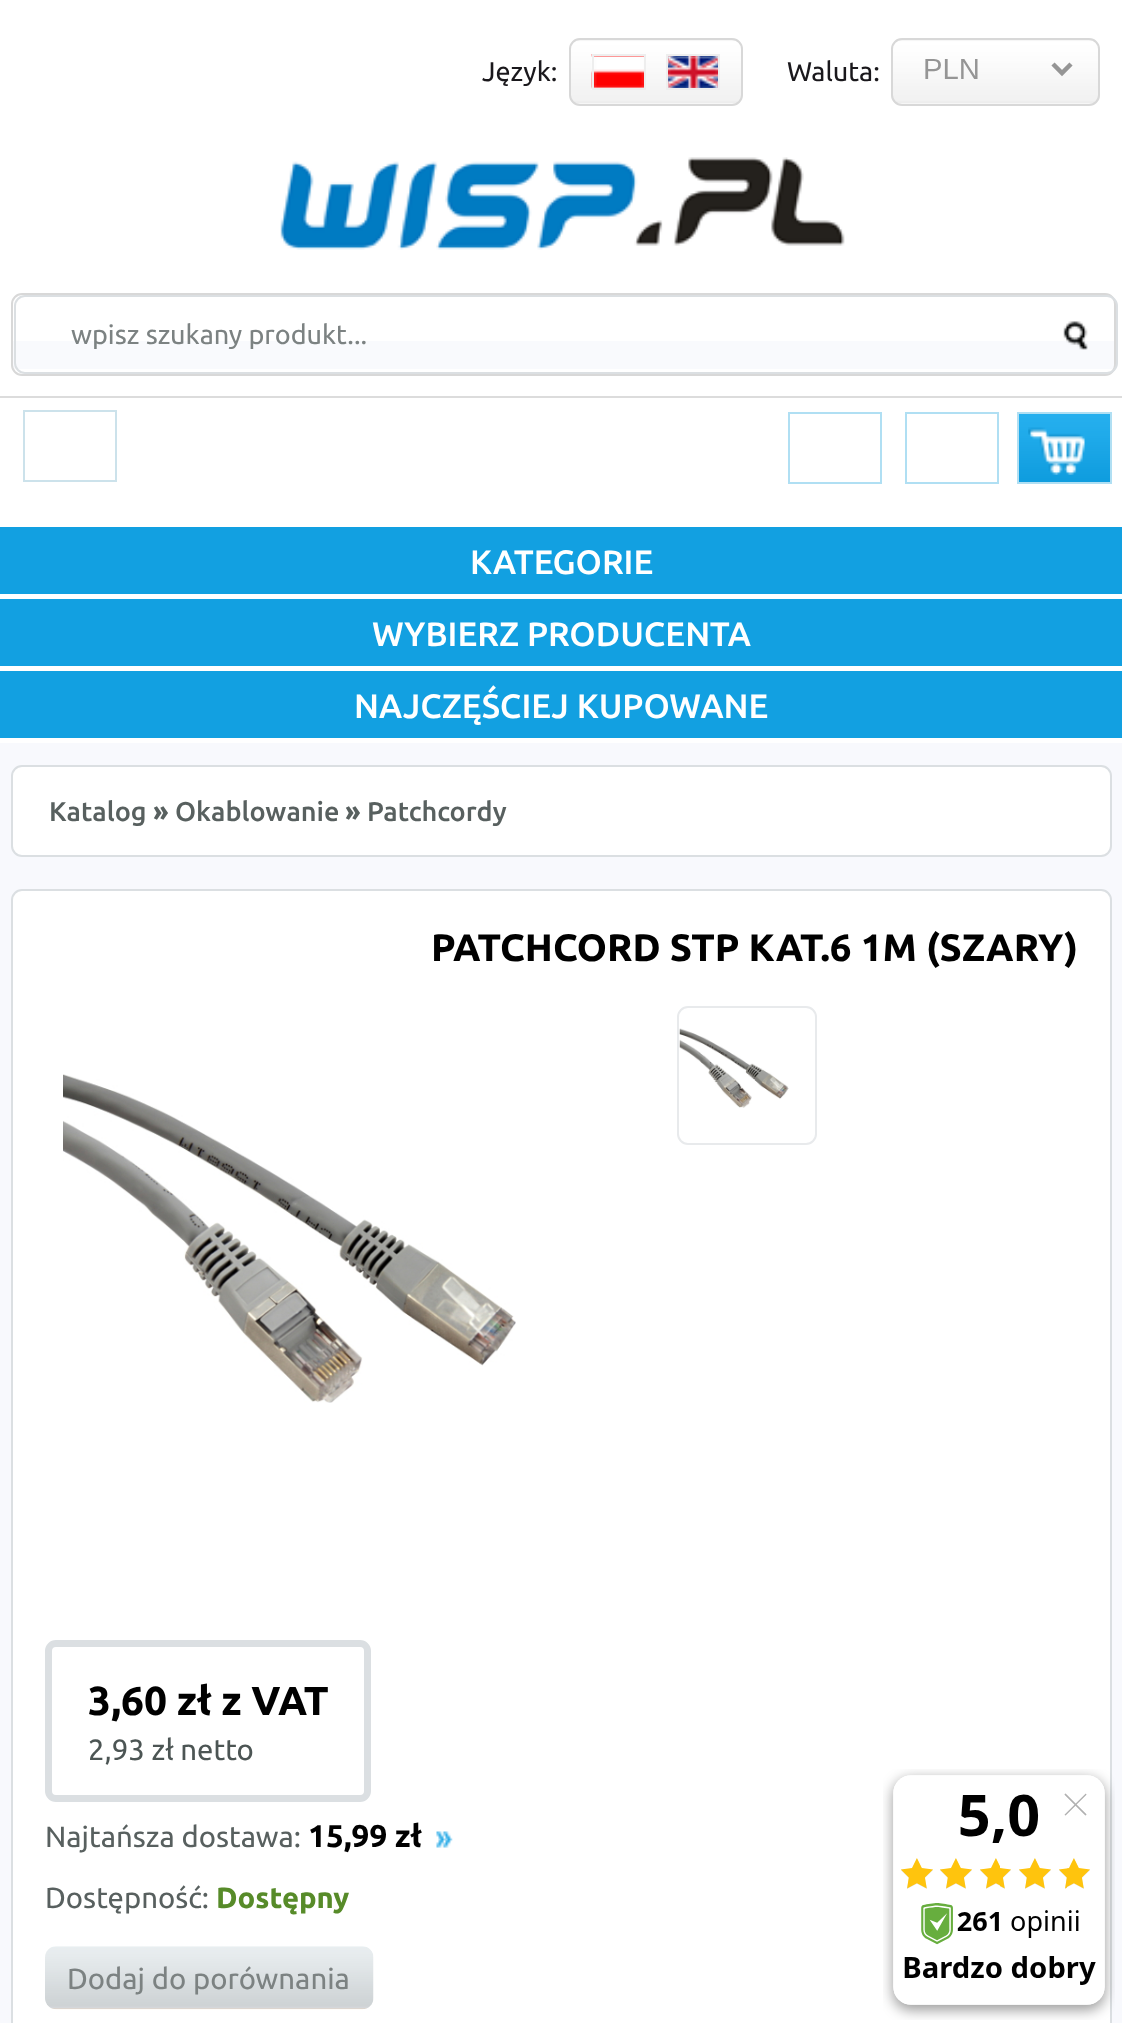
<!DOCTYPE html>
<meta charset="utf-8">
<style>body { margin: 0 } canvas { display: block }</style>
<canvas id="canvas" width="1122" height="2023"></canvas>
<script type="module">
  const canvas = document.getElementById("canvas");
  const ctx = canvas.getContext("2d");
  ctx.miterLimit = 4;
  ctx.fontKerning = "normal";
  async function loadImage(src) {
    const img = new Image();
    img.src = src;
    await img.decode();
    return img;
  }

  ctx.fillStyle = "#f8f9fd";
  ctx.fillRect(0, 0, 1122, 2023);
  ctx.fillStyle = "#ffffff";
  ctx.fillRect(0, 0, 1122, 527);
  ctx.font = "27px Ubuntu";
  ctx.fillStyle = "#1a181c";
  ctx.fillText("Język:", 482, 81);
  ctx.drawImage(await loadImage("img1.png"), 569, 38, 173, 66);
  ctx.beginPath();
  ctx.roundRect(570, 39, 172, 66, 10);
  ctx.strokeStyle = "#d8d8d8";
  ctx.lineWidth = 2;
  ctx.stroke();
  ctx.drawImage(await loadImage("img2.png"), 591, 54, 53, 36);
  ctx.strokeStyle = "#eeeeee";
  ctx.strokeRect(593, 55, 52, 34);
  ctx.drawImage(await loadImage("img3.png"), 668, 56, 50, 32);
  ctx.strokeRect(667, 55, 52, 34);
  ctx.fillText("Waluta:", 787, 81);
  ctx.drawImage(await loadImage("img4.png"), 891, 38, 209, 66);
  ctx.beginPath();
  ctx.roundRect(892, 39, 207, 66, 10);
  ctx.strokeStyle = "#d8d8d8";
  ctx.stroke();
  ctx.beginPath();
  ctx.moveTo(1053, 64);
  ctx.lineTo(1062, 73);
  ctx.lineTo(1071, 64);
  ctx.strokeStyle = "#959595";
  ctx.lineWidth = 4.5;
  ctx.stroke();
  ctx.font = "29.25px Liberation Sans";
  ctx.fillStyle = "#959595";
  ctx.fillText("PLN", 923, 79);
  ctx.strokeStyle = "#b0dff3";
  ctx.lineWidth = 2;
  ctx.strokeRect(789, 413, 92, 70);
  ctx.strokeRect(906, 413, 92, 70);
  ctx.drawImage(await loadImage("img5.png"), 275, 157, 573, 93);
  ctx.fillStyle = "#f9fafd";
  ctx.fillRect(13, 341, 1103, 28);
  ctx.beginPath();
  ctx.roundRect(12, 294, 1103, 81, 10);
  ctx.strokeStyle = "#d8d8d8";
  ctx.stroke();
  ctx.beginPath();
  ctx.roundRect(15, 296, 1102, 77, 10);
  ctx.strokeStyle = "#dbdfe2";
  ctx.stroke();
  ctx.font = "27px Ubuntu";
  ctx.fillStyle = "#7c8282";
  ctx.fillText("wpisz szukany produkt...", 71, 344);
  ctx.drawImage(await loadImage("img6.png"), 1063, 321, 25, 29);
  ctx.fillStyle = "#dcdcdc";
  ctx.fillRect(0, 396, 1122, 2);
  ctx.strokeStyle = "#cce2eb";
  ctx.strokeRect(24, 411, 92, 70);
  ctx.drawImage(await loadImage("img7.png"), 1019, 414, 91, 68);
  ctx.strokeStyle = "#b0dff3";
  ctx.strokeRect(1018, 413, 93, 70);
  ctx.drawImage(await loadImage("img8.png"), 1028, 427, 57, 48);
  ctx.fillStyle = "#12a0e1";
  ctx.fillRect(0, 527, 1122, 67);
  ctx.fillStyle = "#ffffff";
  ctx.fillRect(0, 594, 1122, 5);
  ctx.font = "500 33.75px Ubuntu";
  ctx.fillText("KATEGORIE", 470, 574);
  ctx.fillStyle = "#12a0e1";
  ctx.fillRect(0, 599, 1122, 67);
  ctx.fillStyle = "#ffffff";
  ctx.fillRect(0, 666, 1122, 5);
  ctx.fillText("WYBIERZ PRODUCENTA", 372, 646);
  ctx.fillStyle = "#12a0e1";
  ctx.fillRect(0, 671, 1122, 67);
  ctx.fillStyle = "#ffffff";
  ctx.fillRect(0, 738, 1122, 5);
  ctx.fillText("NAJCZĘŚCIEJ KUPOWANE", 354, 718);
  ctx.beginPath();
  ctx.roundRect(12, 766, 1099, 90, 10);
  ctx.fill();
  ctx.strokeStyle = "#dbdfe2";
  ctx.stroke();
  ctx.font = "500 27px Ubuntu";
  ctx.fillStyle = "#58605f";
  ctx.fillText("Katalog", 49, 821);
  ctx.font = "bold 27px Ubuntu";
  ctx.fillText("»", 153, 821);
  ctx.font = "500 27px Ubuntu";
  ctx.fillText("Okablowanie", 175, 821);
  ctx.font = "bold 27px Ubuntu";
  ctx.fillText("»", 345, 821);
  ctx.font = "500 27px Ubuntu";
  ctx.fillText("Patchcordy", 367, 821);
  ctx.fillStyle = "#ffffff";
  ctx.beginPath();
  ctx.roundRect(12, 890, 1099, 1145, 10);
  ctx.fill();
  ctx.stroke();
  ctx.font = "bold 38.25px 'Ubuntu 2'";
  ctx.fillStyle = "#000000";
  ctx.fillText("PATCHCORD STP KAT.6 1M (SZARY)", 431, 961);
  ctx.drawImage(await loadImage("img9.png"), 63, 1074, 453, 329);
  ctx.beginPath();
  ctx.roundRect(678, 1007, 138, 137, 10);
  ctx.strokeStyle = "#e8eaec";
  ctx.stroke();
  ctx.drawImage(await loadImage("img10.png"), 679, 1028, 110, 80);
  ctx.beginPath();
  ctx.roundRect(48.5, 1643.5, 319, 155, 7.5);
  ctx.strokeStyle = "#dbdfe2";
  ctx.lineWidth = 7;
  ctx.stroke();
  ctx.font = "bold 40.5px 'Ubuntu 2'";
  ctx.fillText("3,60 zł z VAT", 88, 1715);
  ctx.font = "29.25px Ubuntu";
  ctx.fillStyle = "#4c5554";
  ctx.fillText("2,93 zł netto", 88, 1760);
  ctx.fillStyle = "#58605f";
  ctx.fillText("Najtańsza dostawa:", 45, 1847);
  ctx.drawImage(await loadImage("img11.png"), 436, 1831, 17, 17);
  ctx.font = "bold 31.5px 'Ubuntu 2'";
  ctx.fillStyle = "#000000";
  ctx.fillText("15,99 zł", 308, 1847);
  ctx.font = "29.25px Ubuntu";
  ctx.fillStyle = "#58605f";
  ctx.fillText("Dostępność:", 45, 1908);
  ctx.font = "bold 29.25px 'Ubuntu 2'";
  ctx.fillStyle = "#578b29";
  ctx.fillText("Dostępny", 216, 1908);
  ctx.drawImage(await loadImage("img12.png"), 45, 1946, 329, 64);
  ctx.font = "29.25px Ubuntu";
  ctx.fillStyle = "#7c8282";
  ctx.fillText("Dodaj do porównania", 67, 1989);
  ctx.drawImage(await loadImage("img13.png"), 883, 1769, 232, 251);
</script>
